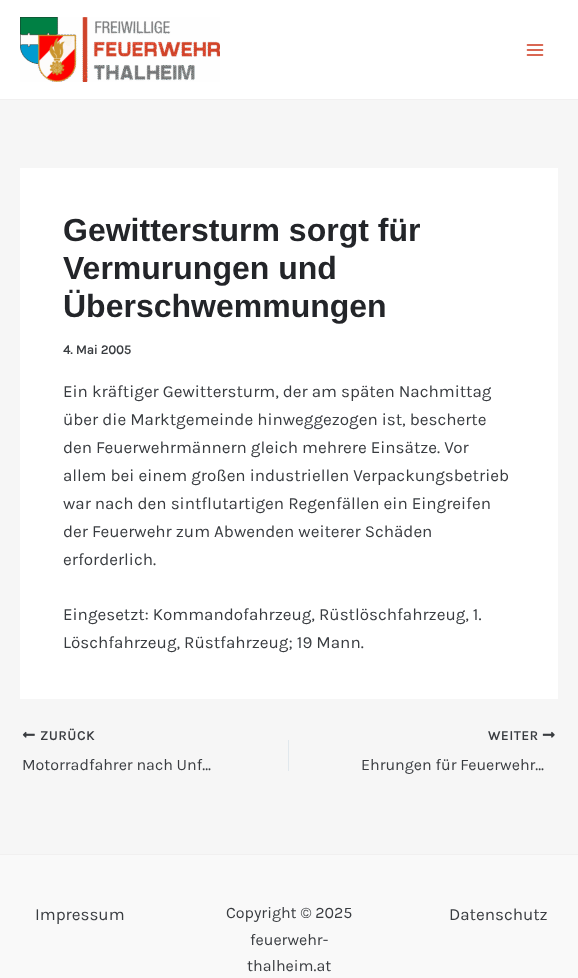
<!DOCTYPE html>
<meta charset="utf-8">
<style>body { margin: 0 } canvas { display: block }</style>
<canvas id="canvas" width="578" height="978"></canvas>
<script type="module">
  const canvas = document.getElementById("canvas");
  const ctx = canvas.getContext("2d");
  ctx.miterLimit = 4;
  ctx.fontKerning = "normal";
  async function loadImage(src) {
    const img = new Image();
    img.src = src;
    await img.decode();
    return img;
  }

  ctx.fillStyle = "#f6f6f6";
  ctx.fillRect(0, 0, 578, 978);
  ctx.fillStyle = "#ffffff";
  ctx.fillRect(0, 0, 578, 99);
  ctx.fillStyle = "#f1f0f0";
  ctx.fillRect(0, 99, 578, 1);
  ctx.drawImage(await loadImage("img1.png"), 20, 17, 200, 65);
  ctx.drawImage(await loadImage("img2.png"), 526, 44, 18, 12);
  ctx.fillStyle = "#ffffff";
  ctx.fillRect(20, 168, 538, 531);
  ctx.font = "bold 32px Liberation Sans";
  ctx.fillStyle = "#232529";
  ctx.fillText("Gewittersturm sorgt für", 63, 241);
  ctx.fillText("Vermurungen und", 63, 279);
  ctx.fillText("Überschwemmungen", 63, 317);
  ctx.font = "bold 13px Karla";
  ctx.fillStyle = "#393c40";
  ctx.fillText("4. Mai 2005", 63, 354);
  ctx.font = "17px Karla";
  ctx.fillText("Ein kräftiger Gewittersturm, der am späten Nachmittag", 63, 397);
  ctx.fillText("über die Marktgemeinde hinweggezogen ist, bescherte", 63, 425);
  ctx.fillText("den Feuerwehrmännern gleich mehrere Einsätze. Vor", 63, 453);
  ctx.fillText("allem bei einem großen industriellen Verpackungsbetrieb", 63, 481);
  ctx.fillText("war nach den sintflutartigen Regenfällen ein Eingreifen", 63, 509);
  ctx.fillText("der Feuerwehr zum Abwenden weiterer Schäden", 63, 537);
  ctx.fillText("erforderlich.", 63, 565);
  ctx.fillText("Eingesetzt: Kommandofahrzeug, Rüstlöschfahrzeug, 1.", 63, 620);
  ctx.fillText("Löschfahrzeug, Rüstfahrzeug; 19 Mann.", 63, 648);
  ctx.drawImage(await loadImage("img3.png"), 22, 731, 13, 7);
  ctx.letterSpacing = "0.75px";
  ctx.font = "bold 13.5px Karla";
  ctx.fillText("ZURÜCK", 40, 740);
  ctx.letterSpacing = "0px";
  ctx.font = "16px Karla";
  ctx.fillText("Motorradfahrer nach Unf…", 22, 770);
  ctx.fillStyle = "#e1e8ed";
  ctx.fillRect(288, 740, 1, 31);
  ctx.letterSpacing = "0.75px";
  ctx.font = "bold 13.5px Karla";
  ctx.fillStyle = "#393c40";
  ctx.fillText("WEITER", 488, 740);
  ctx.drawImage(await loadImage("img4.png"), 542, 731, 13, 7);
  ctx.letterSpacing = "0px";
  ctx.font = "16px Karla";
  ctx.fillText("Ehrungen für Feuerwehr…", 361, 770);
  ctx.fillStyle = "#f9f9f9";
  ctx.fillRect(0, 855, 578, 123);
  ctx.fillStyle = "#f1f0f0";
  ctx.fillRect(0, 854, 578, 1);
  ctx.font = "17px Karla";
  ctx.fillStyle = "#393c40";
  ctx.fillText("Impressum", 35, 920);
  ctx.font = "16px Karla";
  ctx.fillText("Copyright © 2025", 226, 918);
  ctx.fillText("feuerwehr-", 250, 945);
  ctx.fillText("thalheim.at", 247, 971);
  ctx.font = "17px Karla";
  ctx.fillText("Datenschutz", 449, 920);
</script>
